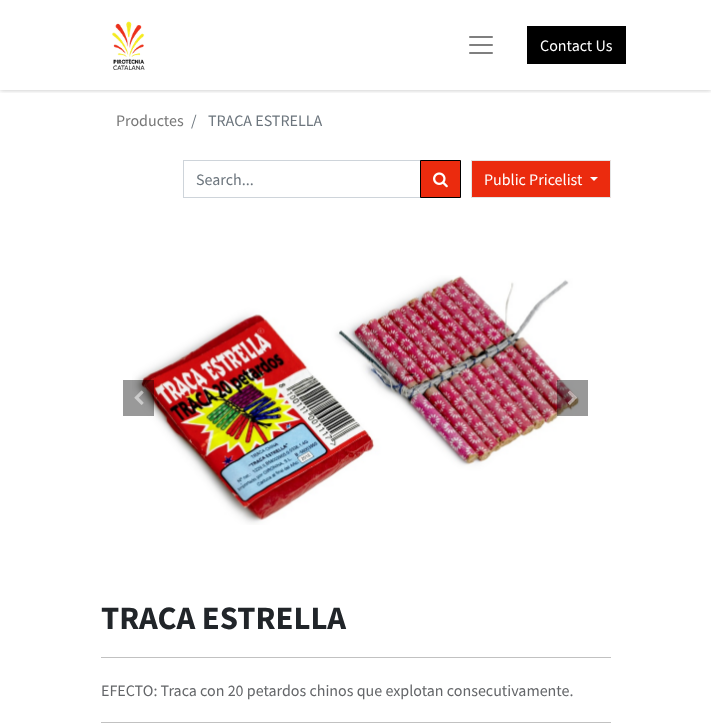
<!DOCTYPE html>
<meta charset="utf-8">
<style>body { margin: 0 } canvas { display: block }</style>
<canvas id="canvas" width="711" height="728"></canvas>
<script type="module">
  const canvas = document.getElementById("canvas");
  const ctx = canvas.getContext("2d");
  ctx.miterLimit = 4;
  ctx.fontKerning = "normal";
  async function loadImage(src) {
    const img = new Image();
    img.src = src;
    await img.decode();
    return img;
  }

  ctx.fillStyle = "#ffffff";
  ctx.fillRect(0, 0, 711, 728);
  ctx.save();
  ctx.beginPath();
  ctx.rect(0, 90, 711, 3);
  ctx.clip();
  ctx.fillStyle = "rgba(0, 0, 0, 0.25)";
  ctx.filter = "blur(2.5px)";
  ctx.beginPath();
  ctx.rect(0, 0, 711, 90);
  ctx.fill();
  ctx.filter = "none";
  ctx.restore();
  ctx.drawImage(await loadImage("img1.png"), 112, 21, 33, 49);
  ctx.drawImage(await loadImage("img2.png"), 469, 36, 24, 18);
  ctx.fillStyle = "#000000";
  ctx.fillRect(527, 26, 99, 38);
  ctx.font = "16px Source Sans Pro";
  ctx.fillStyle = "#ffffff";
  ctx.fillText("Contact Us", 540, 51);
  ctx.fillStyle = "#777777";
  ctx.fillText("Productes", 116, 126);
  ctx.fillStyle = "#6c757d";
  ctx.fillText("/", 191, 126);
  ctx.fillText("TRACA ESTRELLA", 208, 126);
  ctx.strokeStyle = "#ced4da";
  ctx.strokeRect(183.5, 160.5, 237, 37);
  ctx.fillText("Search...", 196, 185);
  ctx.fillStyle = "#eb2b0e";
  ctx.beginPath();
  ctx.rect(420.5, 160.5, 40, 37);
  ctx.fill();
  ctx.strokeStyle = "#000000";
  ctx.stroke();
  ctx.drawImage(await loadImage("img3.png"), 433, 172, 15, 16);
  ctx.beginPath();
  ctx.rect(471.5, 160.5, 139, 37);
  ctx.fill();
  ctx.strokeStyle = "#e4e4e4";
  ctx.stroke();
  ctx.fillStyle = "#ffffff";
  ctx.fillText("Public Pricelist", 484, 185);
  ctx.beginPath();
  ctx.moveTo(590, 177);
  ctx.lineTo(598, 177);
  ctx.lineTo(594, 181);
  ctx.closePath();
  ctx.fill();
  ctx.drawImage(await loadImage("img4.png"), 132, 275, 448, 250);
  ctx.fillStyle = "rgba(0, 0, 0, 0.4)";
  ctx.fillRect(123, 380, 31, 36);
  ctx.drawImage(await loadImage("img5.png"), 134, 390, 10, 15);
  ctx.fillRect(557, 380, 31, 36);
  ctx.drawImage(await loadImage("img6.png"), 567, 390, 10, 15);
  ctx.font = "bold 32.75px Source Sans Pro";
  ctx.fillStyle = "#212529";
  ctx.fillText("TRACA ESTRELLA", 101, 629);
  ctx.fillStyle = "#c1c1c1";
  ctx.fillRect(101, 657, 510, 1);
  ctx.font = "16px Source Sans Pro";
  ctx.fillStyle = "#646669";
  ctx.fillText("EFECTO: Traca con 20 petardos chinos que explotan consecutivamente.", 101, 696);
  ctx.fillStyle = "#c1c1c1";
  ctx.fillRect(101, 722, 510, 1);
</script>
